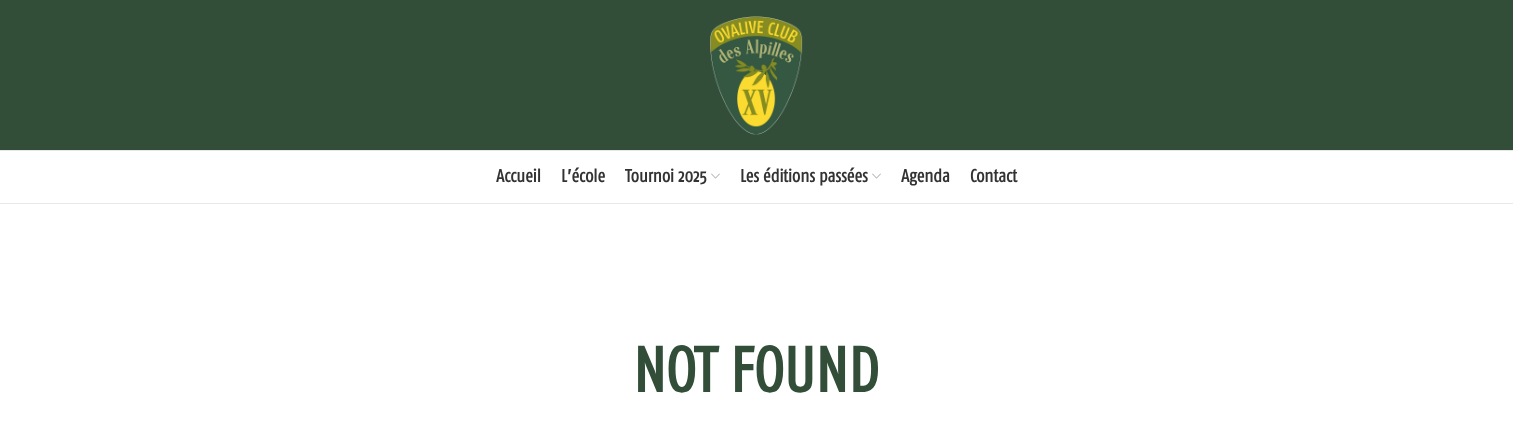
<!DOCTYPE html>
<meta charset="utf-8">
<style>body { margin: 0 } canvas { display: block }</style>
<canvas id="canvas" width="1513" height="426"></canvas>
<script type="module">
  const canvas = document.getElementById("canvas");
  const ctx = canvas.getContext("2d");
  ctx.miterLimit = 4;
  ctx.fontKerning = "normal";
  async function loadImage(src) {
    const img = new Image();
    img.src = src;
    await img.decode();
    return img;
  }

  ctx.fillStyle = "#ffffff";
  ctx.fillRect(0, 0, 1513, 426);
  ctx.fillStyle = "#324e39";
  ctx.fillRect(0, 0, 1513, 150);
  ctx.fillStyle = "#e8e8e8";
  ctx.fillRect(0, 150, 1513, 1);
  ctx.drawImage(await loadImage("img1.png"), 710, 16, 93, 119);
  ctx.fillRect(0, 203, 1513, 1);
  ctx.font = "bold 18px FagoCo";
  ctx.fillStyle = "#333333";
  ctx.fillText("Accueil", 496, 182);
  ctx.fillText("L’école", 561, 182);
  ctx.fillText("Tournoi 2025", 625, 182);
  ctx.drawImage(await loadImage("img2.png"), 711, 173, 9, 6);
  ctx.fillText("Les éditions passées", 740, 182);
  ctx.drawImage(await loadImage("img2.png"), 872, 173, 9, 6);
  ctx.fillText("Agenda", 901, 182);
  ctx.fillText("Contact", 970, 182);
  ctx.font = "bold 63.5px FagoCo";
  ctx.fillStyle = "#324e39";
  ctx.fillText("NOT FOUND", 633, 392);
</script>
